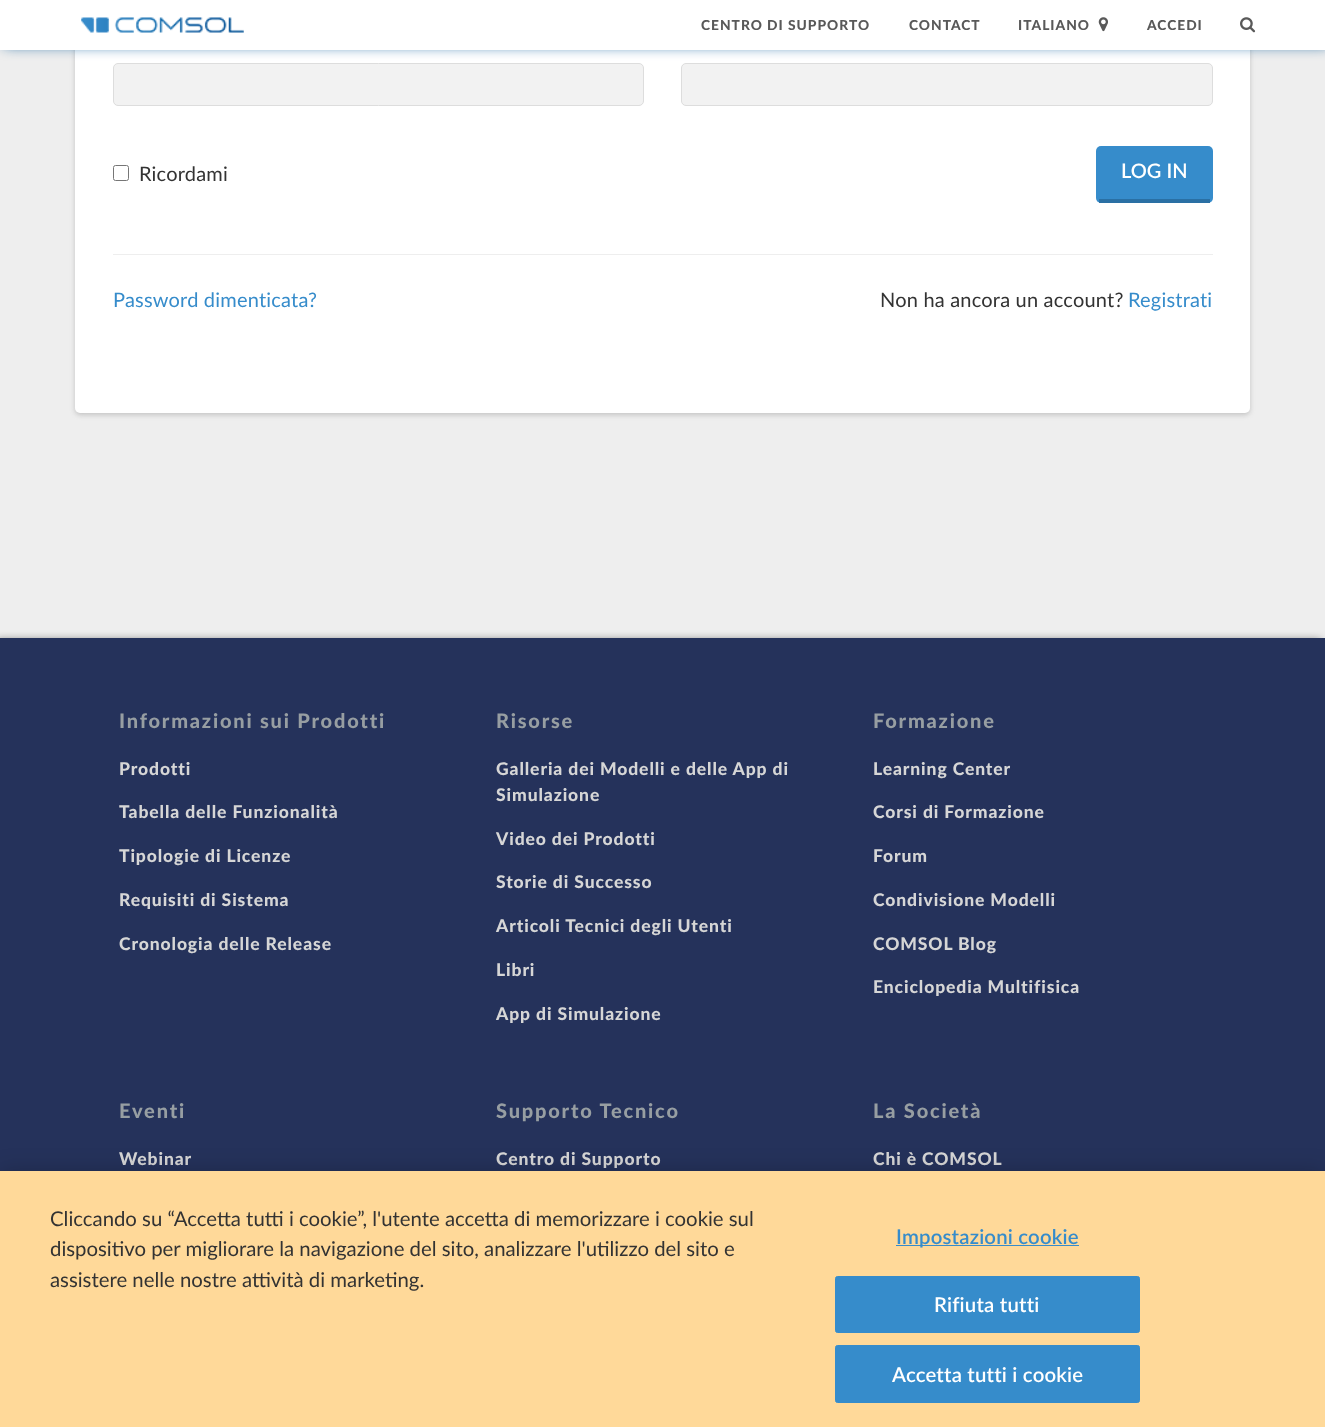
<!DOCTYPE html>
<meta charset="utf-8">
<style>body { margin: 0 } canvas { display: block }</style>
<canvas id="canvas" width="1325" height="1427"></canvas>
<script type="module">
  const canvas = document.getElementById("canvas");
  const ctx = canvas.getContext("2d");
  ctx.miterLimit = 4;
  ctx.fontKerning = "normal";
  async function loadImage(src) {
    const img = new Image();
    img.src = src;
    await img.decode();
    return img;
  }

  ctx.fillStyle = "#eeeeee";
  ctx.fillRect(0, 0, 1325, 1427);
  ctx.fillStyle = "rgba(100, 100, 100, 0.3)";
  ctx.filter = "blur(2.5px)";
  ctx.beginPath();
  ctx.roundRect(75, -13, 1175, 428, 5);
  ctx.fill();
  ctx.filter = "none";
  ctx.fillStyle = "#ffffff";
  ctx.beginPath();
  ctx.roundRect(75, -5, 1175, 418, 5);
  ctx.fill();
  ctx.fillStyle = "#f2f2f2";
  ctx.beginPath();
  ctx.roundRect(113.5, 63.5, 530, 42, 4.5);
  ctx.fill();
  ctx.strokeStyle = "#dddddd";
  ctx.stroke();
  ctx.beginPath();
  ctx.roundRect(681.5, 63.5, 531, 42, 4.5);
  ctx.fill();
  ctx.stroke();
  ctx.fillStyle = "#005596";
  ctx.filter = "blur(7px)";
  ctx.beginPath();
  ctx.rect(4, -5, 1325, 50);
  ctx.fill();
  ctx.filter = "none";
  ctx.fillStyle = "#ffffff";
  ctx.fillRect(0, 0, 1325, 50);
  ctx.drawImage(await loadImage("img1.png"), 81, 17, 163, 16);
  ctx.letterSpacing = "1px";
  ctx.font = "900 13.75px Lato";
  ctx.fillStyle = "#595959";
  ctx.fillText("CENTRO DI SUPPORTO", 701, 30);
  ctx.fillText("CONTACT", 909, 30);
  ctx.fillText("ITALIANO", 1018, 30);
  ctx.drawImage(await loadImage("img2.png"), 1098, 17, 10, 15);
  ctx.fillText("ACCEDI", 1147, 30);
  ctx.drawImage(await loadImage("img3.png"), 1240, 17, 16, 16);
  ctx.beginPath();
  ctx.roundRect(113.5, 165.5, 15, 15, 2);
  ctx.strokeStyle = "#767676";
  ctx.stroke();
  ctx.letterSpacing = "0.2px";
  ctx.font = "20px Lato";
  ctx.fillStyle = "#333333";
  ctx.fillText("Ricordami", 139, 181);
  ctx.fillStyle = "#368ccb";
  ctx.beginPath();
  ctx.roundRect(1096, 146, 117, 57, 5);
  ctx.fill();
  ctx.fillStyle = "#2a70a4";
  ctx.fillRect(1099, 199, 111, 4);
  ctx.letterSpacing = "0px";
  ctx.font = "600 20px Lato";
  ctx.fillStyle = "#ffffff";
  ctx.fillText("LOG IN", 1121, 178);
  ctx.fillStyle = "#eeeeee";
  ctx.fillRect(113, 254, 1100, 1);
  ctx.letterSpacing = "0.2px";
  ctx.font = "20px Lato";
  ctx.fillStyle = "#368ccb";
  ctx.fillText("Password dimenticata?", 113, 307);
  ctx.fillStyle = "#333333";
  ctx.fillText("Non ha ancora un account?", 880, 307);
  ctx.fillStyle = "#368ccb";
  ctx.fillText("Registrati", 1128, 307);
  ctx.fillStyle = "rgba(0, 0, 0, 0.55)";
  ctx.filter = "blur(4px)";
  ctx.beginPath();
  ctx.rect(-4, 640, 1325, 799);
  ctx.fill();
  ctx.filter = "none";
  ctx.fillStyle = "#25325b";
  ctx.fillRect(0, 638, 1325, 533);
  ctx.letterSpacing = "1.8px";
  ctx.font = "900 20px Lato";
  ctx.fillStyle = "#979ea2";
  ctx.fillText("Informazioni sui Prodotti", 119, 728);
  ctx.letterSpacing = "0.9px";
  ctx.font = "900 17.5px Lato";
  ctx.fillStyle = "#d6d6d6";
  ctx.fillText("Prodotti", 119, 775);
  ctx.fillText("Tabella delle Funzionalità", 119, 818);
  ctx.fillText("Tipologie di Licenze", 119, 862);
  ctx.fillText("Requisiti di Sistema", 119, 906);
  ctx.fillText("Cronologia delle Release", 119, 950);
  ctx.letterSpacing = "1.8px";
  ctx.font = "900 20px Lato";
  ctx.fillStyle = "#979ea2";
  ctx.fillText("Risorse", 496, 728);
  ctx.letterSpacing = "0.9px";
  ctx.font = "900 17.5px Lato";
  ctx.fillStyle = "#d6d6d6";
  ctx.fillText("Galleria dei Modelli e delle App di", 496, 775);
  ctx.fillText("Simulazione", 496, 801);
  ctx.fillText("Video dei Prodotti", 496, 845);
  ctx.fillText("Storie di Successo", 496, 888);
  ctx.fillText("Articoli Tecnici degli Utenti", 496, 932);
  ctx.fillText("Libri", 496, 976);
  ctx.fillText("App di Simulazione", 496, 1020);
  ctx.letterSpacing = "1.8px";
  ctx.font = "900 20px Lato";
  ctx.fillStyle = "#979ea2";
  ctx.fillText("Formazione", 873, 728);
  ctx.letterSpacing = "0.9px";
  ctx.font = "900 17.5px Lato";
  ctx.fillStyle = "#d6d6d6";
  ctx.fillText("Learning Center", 873, 775);
  ctx.fillText("Corsi di Formazione", 873, 818);
  ctx.fillText("Forum", 873, 862);
  ctx.fillText("Condivisione Modelli", 873, 906);
  ctx.fillText("COMSOL Blog", 873, 950);
  ctx.fillText("Enciclopedia Multifisica", 873, 993);
  ctx.letterSpacing = "1.8px";
  ctx.font = "900 20px Lato";
  ctx.fillStyle = "#979ea2";
  ctx.fillText("Eventi", 119, 1118);
  ctx.letterSpacing = "0.9px";
  ctx.font = "900 17.5px Lato";
  ctx.fillStyle = "#d6d6d6";
  ctx.fillText("Webinar", 119, 1165);
  ctx.letterSpacing = "1.8px";
  ctx.font = "900 20px Lato";
  ctx.fillStyle = "#979ea2";
  ctx.fillText("Supporto Tecnico", 496, 1118);
  ctx.letterSpacing = "0.9px";
  ctx.font = "900 17.5px Lato";
  ctx.fillStyle = "#d6d6d6";
  ctx.fillText("Centro di Supporto", 496, 1165);
  ctx.letterSpacing = "1.8px";
  ctx.font = "900 20px Lato";
  ctx.fillStyle = "#979ea2";
  ctx.fillText("La Società", 873, 1118);
  ctx.letterSpacing = "0.9px";
  ctx.font = "900 17.5px Lato";
  ctx.fillStyle = "#d6d6d6";
  ctx.fillText("Chi è COMSOL", 873, 1165);
  ctx.fillStyle = "rgba(0, 0, 0, 0.2)";
  ctx.filter = "blur(11px)";
  ctx.beginPath();
  ctx.rect(0, 1171, 1325, 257);
  ctx.fill();
  ctx.filter = "none";
  ctx.fillStyle = "#ffd999";
  ctx.fillRect(0, 1171, 1325, 256);
  ctx.letterSpacing = "0px";
  ctx.font = "20.35px Lato";
  ctx.fillStyle = "#333333";
  ctx.fillText("Cliccando su “Accetta tutti i cookie”, l'utente accetta di memorizzare i cookie sul", 50, 1226);
  ctx.fillText("dispositivo per migliorare la navigazione del sito, analizzare l'utilizzo del sito e", 50, 1256);
  ctx.fillText("assistere nelle nostre attività di marketing.", 50, 1287);
  ctx.fillStyle = "#368ccb";
  ctx.fillRect(896, 1245, 183, 1);
  ctx.letterSpacing = "0.2px";
  ctx.font = "600 20.35px Lato";
  ctx.fillText("Impostazioni cookie", 896, 1244);
  ctx.beginPath();
  ctx.roundRect(835.5, 1276.5, 304, 56, 2);
  ctx.fill();
  ctx.strokeStyle = "#368ccb";
  ctx.stroke();
  ctx.fillStyle = "#ffffff";
  ctx.fillText("Rifiuta tutti", 934, 1312);
  ctx.fillStyle = "#368ccb";
  ctx.beginPath();
  ctx.roundRect(835.5, 1345.5, 304, 57, 2);
  ctx.fill();
  ctx.stroke();
  ctx.fillStyle = "#ffffff";
  ctx.fillText("Accetta tutti i cookie", 892, 1382);
</script>
